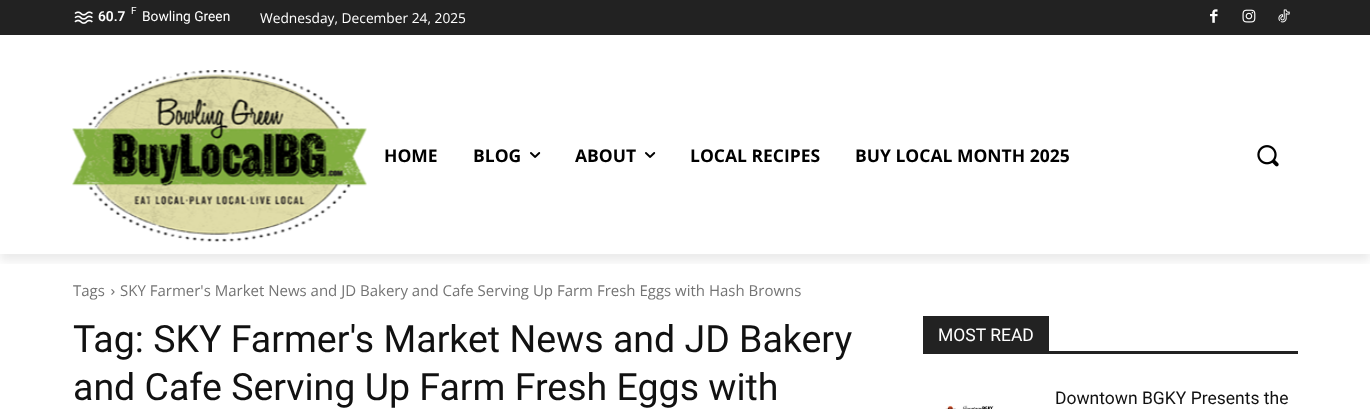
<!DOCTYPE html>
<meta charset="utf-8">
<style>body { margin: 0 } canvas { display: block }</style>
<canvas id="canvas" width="1370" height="409"></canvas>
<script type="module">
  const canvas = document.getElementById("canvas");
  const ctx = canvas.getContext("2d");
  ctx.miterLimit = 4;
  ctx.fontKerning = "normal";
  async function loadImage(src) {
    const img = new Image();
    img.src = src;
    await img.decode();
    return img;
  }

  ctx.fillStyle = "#ffffff";
  ctx.fillRect(0, 0, 1370, 409);
  ctx.fillStyle = "#222222";
  ctx.fillRect(0, 0, 1370, 35);
  ctx.drawImage(await loadImage("img1.png"), 74, 11, 19, 13);
  ctx.drawImage(await loadImage("img2.png"), 1210, 9, 8, 14);
  ctx.drawImage(await loadImage("img3.png"), 1242, 9, 14, 14);
  ctx.drawImage(await loadImage("img4.png"), 1278, 9, 12, 14);
  ctx.drawImage(await loadImage("img5.png"), 72, 70, 295, 172);
  ctx.save();
  ctx.beginPath();
  ctx.rect(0, 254, 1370, 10);
  ctx.clip();
  ctx.fillStyle = "rgba(0, 0, 0, 0.08)";
  ctx.filter = "blur(5px)";
  ctx.beginPath();
  ctx.rect(0, 8, 1370, 253);
  ctx.fill();
  ctx.filter = "none";
  ctx.restore();
  ctx.font = "10px Roboto";
  ctx.fillStyle = "#ffffff";
  ctx.fillText("F", 131, 14);
  ctx.font = "600 13.75px Roboto";
  ctx.fillText("60.7", 98, 21);
  ctx.font = "13.75px Roboto";
  ctx.fillText("Bowling Green", 142, 21);
  ctx.font = "13.75px Open Sans";
  ctx.fillText("Wednesday, December 24, 2025", 260, 23);
  ctx.font = "bold 17.5px Open Sans";
  ctx.fillStyle = "#000000";
  ctx.fillText("HOME", 384, 162);
  ctx.fillText("BLOG", 473, 162);
  ctx.drawImage(await loadImage("img6.png"), 530, 152, 11, 6);
  ctx.fillText("ABOUT", 575, 162);
  ctx.drawImage(await loadImage("img6.png"), 645, 152, 11, 6);
  ctx.fillText("LOCAL RECIPES", 690, 162);
  ctx.fillText("BUY LOCAL MONTH 2025", 855, 162);
  ctx.drawImage(await loadImage("img7.png"), 1257, 145, 22, 22);
  ctx.font = "15px Open Sans";
  ctx.fillStyle = "#747474";
  ctx.fillText("Tags", 73, 296);
  ctx.drawImage(await loadImage("img8.png"), 111, 289, 4, 6);
  ctx.fillText("SKY Farmer's Market News and JD Bakery and Cafe Serving Up Farm Fresh Eggs with Hash Browns", 120, 296);
  ctx.font = "37.5px Roboto";
  ctx.fillStyle = "#111111";
  ctx.fillText("Tag: SKY Farmer's Market News and JD Bakery", 73, 352);
  ctx.fillText("and Cafe Serving Up Farm Fresh Eggs with", 73, 400);
  ctx.fillStyle = "#222222";
  ctx.fillRect(923, 351, 375, 3);
  ctx.fillRect(923, 316, 126, 35);
  ctx.font = "17.5px Roboto";
  ctx.fillStyle = "#ffffff";
  ctx.fillText("MOST READ", 938, 341);
  ctx.fillStyle = "#111111";
  ctx.fillText("Downtown BGKY Presents the", 1055, 404);
  ctx.drawImage(await loadImage("img9.png"), 945, 405, 49, 4);
</script>
